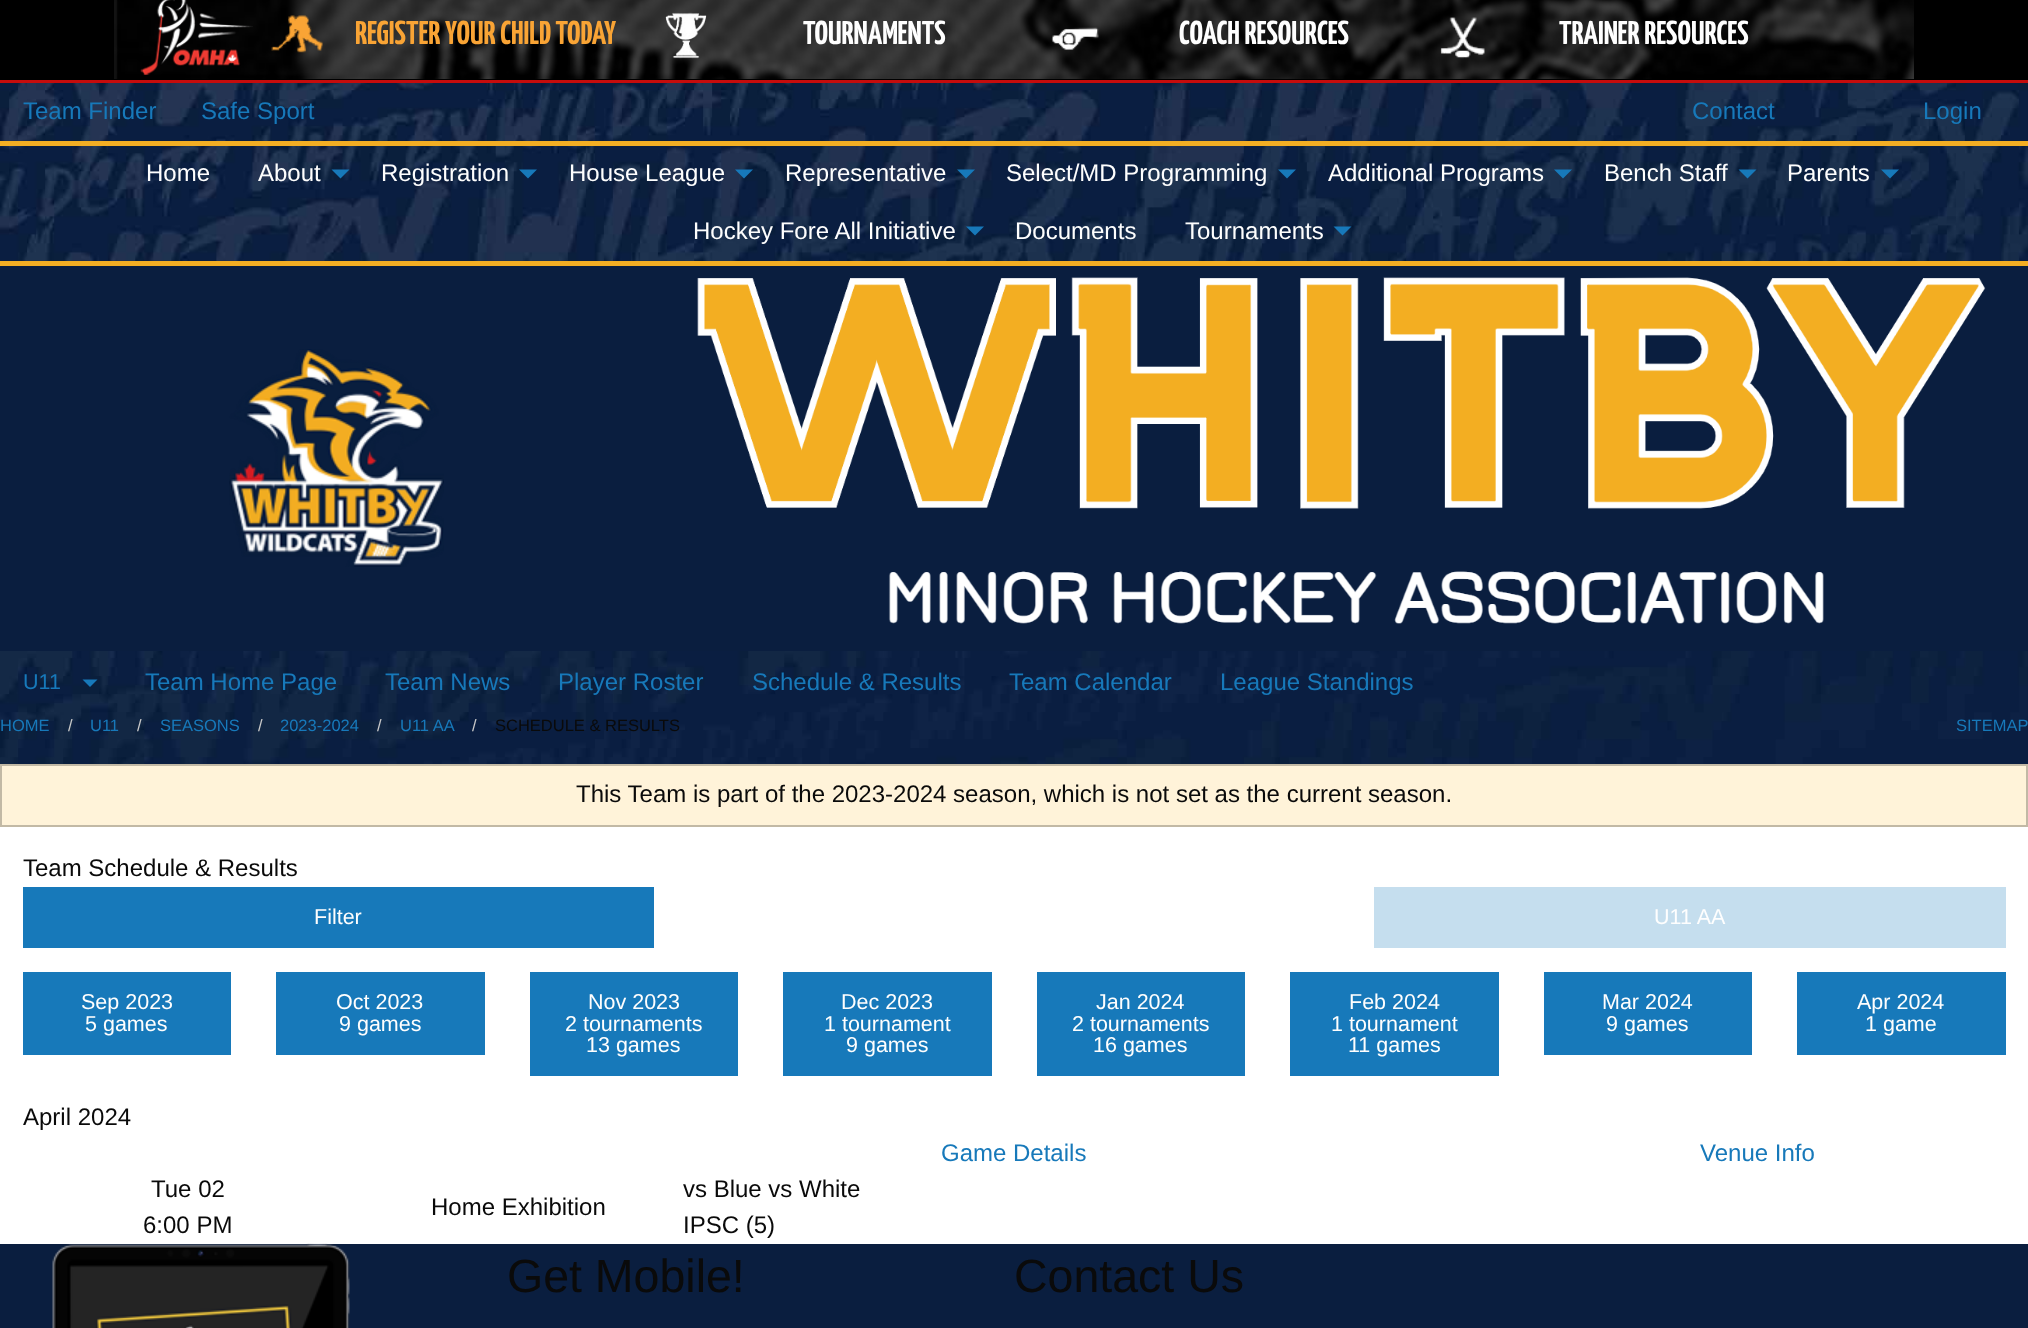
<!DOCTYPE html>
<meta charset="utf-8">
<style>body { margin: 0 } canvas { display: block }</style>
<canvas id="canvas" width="2028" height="1328"></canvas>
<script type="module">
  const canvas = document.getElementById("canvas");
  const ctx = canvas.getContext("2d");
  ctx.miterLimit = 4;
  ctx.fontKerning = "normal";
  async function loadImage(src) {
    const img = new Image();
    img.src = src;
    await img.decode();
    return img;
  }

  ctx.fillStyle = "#0a1e3f";
  ctx.fillRect(0, 0, 2028, 1328);
  ctx.fillStyle = "#000000";
  ctx.fillRect(0, 0, 2028, 80);
  ctx.fillStyle = "#c60c0c";
  ctx.fillRect(0, 80, 2028, 3);
  ctx.drawImage(await loadImage("img1.png"), 114, 0, 1800, 79);
  ctx.drawImage(await loadImage("img2.png"), 140, 0, 113, 75);
  ctx.drawImage(await loadImage("img3.png"), 271, 15, 52, 38);
  ctx.font = "200 33px Yanone Kaffeesatz";
  ctx.fillStyle = "#f9a435";
  ctx.fillText("REGISTER YOUR CHILD TODAY", 355, 44);
  ctx.drawImage(await loadImage("img4.png"), 665, 12, 42, 47);
  ctx.fillStyle = "#fefefe";
  ctx.fillText("TOURNAMENTS", 803, 44);
  ctx.drawImage(await loadImage("img5.png"), 1051, 27, 48, 23);
  ctx.fillText("COACH RESOURCES", 1179, 44);
  ctx.drawImage(await loadImage("img6.png"), 1440, 17, 45, 42);
  ctx.fillText("TRAINER RESOURCES", 1559, 44);
  ctx.drawImage(await loadImage("img7.png"), 0, 83, 2028, 681);
  ctx.font = "24px Liberation Sans";
  ctx.fillStyle = "#1779ba";
  ctx.fillText("Team Finder", 23, 119);
  ctx.fillText("Safe Sport", 201, 119);
  ctx.fillText("Contact", 1692, 119);
  ctx.fillText("Login", 1923, 119);
  ctx.fillStyle = "#f3ae23";
  ctx.fillRect(0, 141, 2028, 5);
  ctx.fillRect(0, 261, 2028, 5);
  ctx.fillStyle = "#fefefe";
  ctx.fillText("Home", 146, 181);
  ctx.fillText("About", 258, 181);
  ctx.fillStyle = "#1779ba";
  ctx.beginPath();
  ctx.moveTo(331.5, 169.5);
  ctx.lineTo(349.5, 169.5);
  ctx.lineTo(340.5, 178.5);
  ctx.closePath();
  ctx.fill();
  ctx.fillStyle = "#fefefe";
  ctx.fillText("Registration", 381, 181);
  ctx.fillStyle = "#1779ba";
  ctx.beginPath();
  ctx.moveTo(519, 169.5);
  ctx.lineTo(537, 169.5);
  ctx.lineTo(528, 178.5);
  ctx.closePath();
  ctx.fill();
  ctx.fillStyle = "#fefefe";
  ctx.fillText("House League", 569, 181);
  ctx.fillStyle = "#1779ba";
  ctx.beginPath();
  ctx.moveTo(735, 169.5);
  ctx.lineTo(753, 169.5);
  ctx.lineTo(744, 178.5);
  ctx.closePath();
  ctx.fill();
  ctx.fillStyle = "#fefefe";
  ctx.fillText("Representative", 785, 181);
  ctx.fillStyle = "#1779ba";
  ctx.beginPath();
  ctx.moveTo(957, 169.5);
  ctx.lineTo(975, 169.5);
  ctx.lineTo(966, 178.5);
  ctx.closePath();
  ctx.fill();
  ctx.fillStyle = "#fefefe";
  ctx.fillText("Select/MD Programming", 1006, 181);
  ctx.fillStyle = "#1779ba";
  ctx.beginPath();
  ctx.moveTo(1278, 169.5);
  ctx.lineTo(1296, 169.5);
  ctx.lineTo(1287, 178.5);
  ctx.closePath();
  ctx.fill();
  ctx.fillStyle = "#fefefe";
  ctx.fillText("Additional Programs", 1328, 181);
  ctx.fillStyle = "#1779ba";
  ctx.beginPath();
  ctx.moveTo(1554, 169.5);
  ctx.lineTo(1572, 169.5);
  ctx.lineTo(1563, 178.5);
  ctx.closePath();
  ctx.fill();
  ctx.fillStyle = "#fefefe";
  ctx.fillText("Bench Staff", 1604, 181);
  ctx.fillStyle = "#1779ba";
  ctx.beginPath();
  ctx.moveTo(1738.5, 169.5);
  ctx.lineTo(1756.5, 169.5);
  ctx.lineTo(1747.5, 178.5);
  ctx.closePath();
  ctx.fill();
  ctx.fillStyle = "#fefefe";
  ctx.fillText("Parents", 1787, 181);
  ctx.fillStyle = "#1779ba";
  ctx.beginPath();
  ctx.moveTo(1881, 169.5);
  ctx.lineTo(1899, 169.5);
  ctx.lineTo(1890, 178.5);
  ctx.closePath();
  ctx.fill();
  ctx.fillStyle = "#fefefe";
  ctx.fillText("Hockey Fore All Initiative", 693, 239);
  ctx.fillStyle = "#1779ba";
  ctx.beginPath();
  ctx.moveTo(966, 226.5);
  ctx.lineTo(984, 226.5);
  ctx.lineTo(975, 235.5);
  ctx.closePath();
  ctx.fill();
  ctx.fillStyle = "#fefefe";
  ctx.fillText("Documents", 1015, 239);
  ctx.fillText("Tournaments", 1185, 239);
  ctx.fillStyle = "#1779ba";
  ctx.beginPath();
  ctx.moveTo(1333.5, 226.5);
  ctx.lineTo(1351.5, 226.5);
  ctx.lineTo(1342.5, 235.5);
  ctx.closePath();
  ctx.fill();
  ctx.fillStyle = "#0a1e3f";
  ctx.fillRect(0, 266, 2028, 385);
  ctx.drawImage(await loadImage("img8.png"), 229, 349, 215, 218);
  ctx.drawImage(await loadImage("img9.png"), 697, 277, 1289, 347);
  ctx.font = "21.5px Liberation Sans";
  ctx.fillStyle = "#1779ba";
  ctx.fillText("U11", 23, 689);
  ctx.beginPath();
  ctx.moveTo(82.5, 679.5);
  ctx.lineTo(97.5, 679.5);
  ctx.lineTo(90, 687);
  ctx.closePath();
  ctx.fill();
  ctx.font = "24px Liberation Sans";
  ctx.fillText("Team Home Page", 145, 690);
  ctx.fillText("Team News", 385, 690);
  ctx.fillText("Player Roster", 558, 690);
  ctx.fillText("Schedule & Results", 752, 690);
  ctx.fillText("Team Calendar", 1009, 690);
  ctx.fillText("League Standings", 1220, 690);
  ctx.font = "16.5px Liberation Sans";
  ctx.fillText("HOME", 0, 731);
  ctx.fillStyle = "#cacaca";
  ctx.fillText("/", 68, 731);
  ctx.fillStyle = "#1779ba";
  ctx.fillText("U11", 90, 731);
  ctx.fillStyle = "#cacaca";
  ctx.fillText("/", 137, 731);
  ctx.fillStyle = "#1779ba";
  ctx.fillText("SEASONS", 160, 731);
  ctx.fillStyle = "#cacaca";
  ctx.fillText("/", 258, 731);
  ctx.fillStyle = "#1779ba";
  ctx.fillText("2023-2024", 280, 731);
  ctx.fillStyle = "#cacaca";
  ctx.fillText("/", 377, 731);
  ctx.fillStyle = "#1779ba";
  ctx.fillText("U11 AA", 400, 731);
  ctx.fillStyle = "#cacaca";
  ctx.fillText("/", 472, 731);
  ctx.fillStyle = "#0a0a0a";
  ctx.fillText("SCHEDULE & RESULTS", 495, 731);
  ctx.fillStyle = "#1779ba";
  ctx.fillText("SITEMAP", 1956, 731);
  ctx.fillStyle = "#ffffff";
  ctx.fillRect(0, 827, 2028, 417);
  ctx.fillStyle = "#fff3d9";
  ctx.beginPath();
  ctx.rect(1, 765, 2026, 61);
  ctx.fill();
  ctx.strokeStyle = "#c2b9a5";
  ctx.lineWidth = 2;
  ctx.stroke();
  ctx.font = "24px Liberation Sans";
  ctx.fillStyle = "#0a0a0a";
  ctx.fillText("This Team is part of the 2023-2024 season, which is not set as the current season.", 576, 802);
  ctx.fillText("Team Schedule & Results", 23, 876);
  ctx.fillStyle = "#1779ba";
  ctx.fillRect(23, 887, 631, 61);
  ctx.font = "21.5px Liberation Sans";
  ctx.fillStyle = "#fefefe";
  ctx.fillText("Filter", 314, 924);
  ctx.fillStyle = "#c5deee";
  ctx.fillRect(1374, 887, 632, 61);
  ctx.fillStyle = "#fefefe";
  ctx.fillText("U11 AA", 1654, 924);
  ctx.fillStyle = "#1779ba";
  ctx.fillRect(23, 972, 208, 83);
  ctx.fillStyle = "#fefefe";
  ctx.fillText("Sep 2023", 81, 1009);
  ctx.fillText("5 games", 85, 1031);
  ctx.fillStyle = "#1779ba";
  ctx.fillRect(276, 972, 209, 83);
  ctx.fillStyle = "#fefefe";
  ctx.fillText("Oct 2023", 336, 1009);
  ctx.fillText("9 games", 339, 1031);
  ctx.fillStyle = "#1779ba";
  ctx.fillRect(530, 972, 208, 104);
  ctx.fillStyle = "#fefefe";
  ctx.fillText("Nov 2023", 588, 1009);
  ctx.fillText("2 tournaments", 565, 1031);
  ctx.fillText("13 games", 586, 1052);
  ctx.fillStyle = "#1779ba";
  ctx.fillRect(783, 972, 209, 104);
  ctx.fillStyle = "#fefefe";
  ctx.fillText("Dec 2023", 841, 1009);
  ctx.fillText("1 tournament", 824, 1031);
  ctx.fillText("9 games", 846, 1052);
  ctx.fillStyle = "#1779ba";
  ctx.fillRect(1037, 972, 208, 104);
  ctx.fillStyle = "#fefefe";
  ctx.fillText("Jan 2024", 1096, 1009);
  ctx.fillText("2 tournaments", 1072, 1031);
  ctx.fillText("16 games", 1093, 1052);
  ctx.fillStyle = "#1779ba";
  ctx.fillRect(1290, 972, 209, 104);
  ctx.fillStyle = "#fefefe";
  ctx.fillText("Feb 2024", 1349, 1009);
  ctx.fillText("1 tournament", 1331, 1031);
  ctx.fillText("11 games", 1348, 1052);
  ctx.fillStyle = "#1779ba";
  ctx.fillRect(1544, 972, 208, 83);
  ctx.fillStyle = "#fefefe";
  ctx.fillText("Mar 2024", 1602, 1009);
  ctx.fillText("9 games", 1606, 1031);
  ctx.fillStyle = "#1779ba";
  ctx.fillRect(1797, 972, 209, 83);
  ctx.fillStyle = "#fefefe";
  ctx.fillText("Apr 2024", 1857, 1009);
  ctx.fillText("1 game", 1865, 1031);
  ctx.font = "24px Liberation Sans";
  ctx.fillStyle = "#0a0a0a";
  ctx.fillText("April 2024", 23, 1125);
  ctx.fillStyle = "#1779ba";
  ctx.fillText("Game Details", 941, 1161);
  ctx.fillText("Venue Info", 1700, 1161);
  ctx.fillStyle = "#0a0a0a";
  ctx.fillText("Tue 02", 151, 1197);
  ctx.fillText("6:00 PM", 143, 1233);
  ctx.fillText("Home Exhibition", 431, 1215);
  ctx.fillText("vs Blue vs White", 683, 1197);
  ctx.fillText("IPSC (5)", 683, 1233);
  ctx.drawImage(await loadImage("img10.png"), 52, 1243, 298, 85);
  ctx.font = "46.5px Liberation Sans";
  ctx.fillText("Get Mobile!", 507, 1292);
  ctx.fillText("Contact Us", 1014, 1292);
</script>
